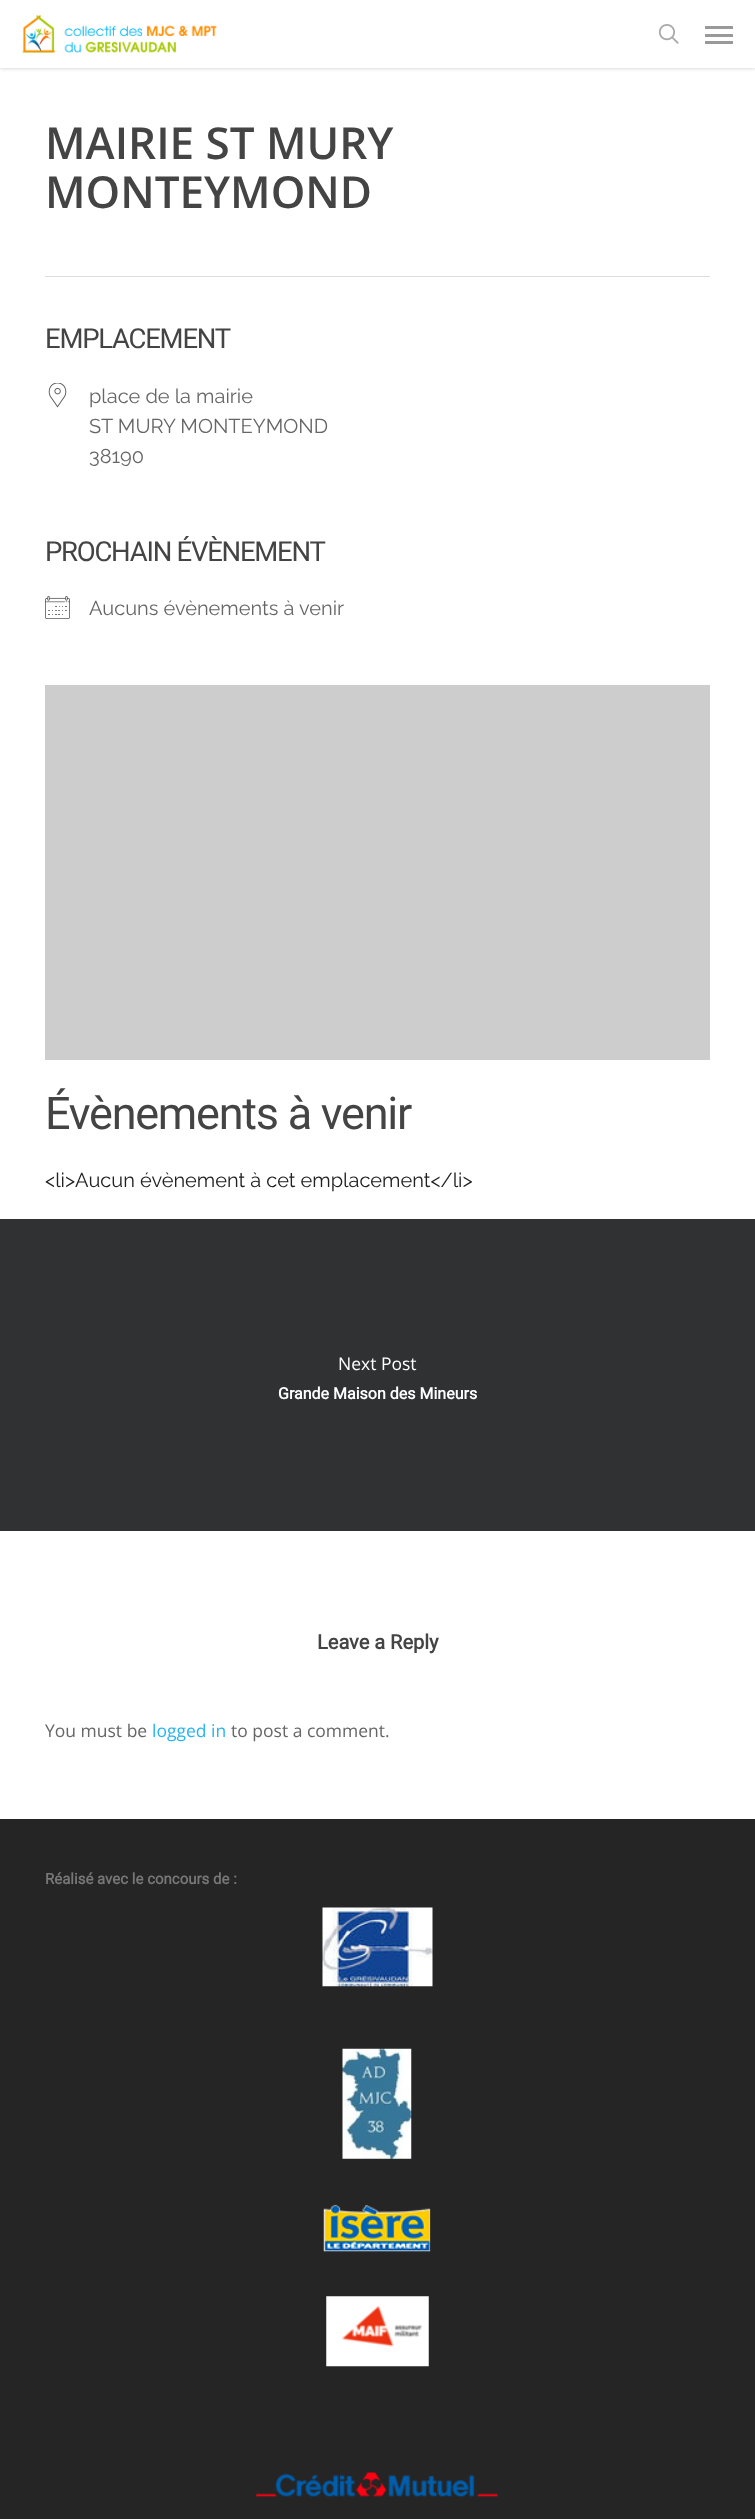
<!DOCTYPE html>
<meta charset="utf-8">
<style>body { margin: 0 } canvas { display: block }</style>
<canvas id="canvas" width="755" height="2519"></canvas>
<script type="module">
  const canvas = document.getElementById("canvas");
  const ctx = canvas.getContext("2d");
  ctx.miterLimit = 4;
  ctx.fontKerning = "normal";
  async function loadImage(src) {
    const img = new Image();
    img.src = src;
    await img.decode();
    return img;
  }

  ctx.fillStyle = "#ffffff";
  ctx.fillRect(0, 0, 755, 2519);
  ctx.fillStyle = "rgba(0, 0, 0, 0.22)";
  ctx.filter = "blur(2px)";
  ctx.beginPath();
  ctx.rect(0, 0, 755, 68);
  ctx.fill();
  ctx.filter = "none";
  ctx.fillStyle = "#ffffff";
  ctx.fillRect(0, 0, 755, 68);
  ctx.drawImage(await loadImage("img1.png"), 22, 15, 195, 38);
  ctx.drawImage(await loadImage("img2.png"), 658, 24, 21, 20);
  ctx.fillStyle = "#999999";
  ctx.fillRect(705, 26, 28, 3);
  ctx.fillRect(705, 41, 28, 3);
  ctx.fillRect(705, 34, 28, 3);
  ctx.fillStyle = "#dddddd";
  ctx.fillRect(45, 276, 665, 1);
  ctx.font = "600 44px Open Sans";
  ctx.fillStyle = "#444444";
  ctx.fillText("MAIRIE ST MURY", 45, 159);
  ctx.fillText("MONTEYMOND", 45, 208);
  ctx.letterSpacing = "-1.25px";
  ctx.font = "27.5px Roboto";
  ctx.fillText("EMPLACEMENT", 45, 348);
  ctx.drawImage(await loadImage("img3.png"), 48, 383, 19, 25);
  ctx.letterSpacing = "0px";
  ctx.font = "20px Raleway";
  ctx.fillStyle = "#666666";
  ctx.fillText("place de la mairie", 89, 403);
  ctx.fillText("ST MURY MONTEYMOND", 89, 433);
  ctx.fillText("38190", 89, 463);
  ctx.letterSpacing = "-1.25px";
  ctx.font = "27.5px Roboto";
  ctx.fillStyle = "#444444";
  ctx.fillText("PROCHAIN ÉVÈNEMENT", 45, 561);
  ctx.drawImage(await loadImage("img4.png"), 45, 596, 25, 23);
  ctx.letterSpacing = "0px";
  ctx.font = "20px Raleway";
  ctx.fillStyle = "#666666";
  ctx.fillText("Aucuns évènements à venir", 89, 615);
  ctx.fillStyle = "#cdcdcd";
  ctx.fillRect(45, 685, 665, 375);
  ctx.letterSpacing = "-1.25px";
  ctx.font = "45px Roboto";
  ctx.fillStyle = "#444444";
  ctx.fillText("Évènements à venir", 45, 1129);
  ctx.letterSpacing = "0px";
  ctx.font = "20px Raleway";
  ctx.fillStyle = "#212121";
  ctx.fillText("<li>Aucun évènement à cet emplacement<\/li>", 45, 1187);
  ctx.fillStyle = "#303132";
  ctx.fillRect(0, 1219, 755, 312);
  ctx.font = "17.5px Open Sans";
  ctx.fillStyle = "#ffffff";
  ctx.fillText("Next Post", 338, 1370);
  ctx.font = "bold 16px Roboto";
  ctx.fillText("Grande Maison des Mineurs", 278, 1399);
  ctx.font = "bold 20px Roboto";
  ctx.fillStyle = "#444444";
  ctx.fillText("Leave a Reply", 317, 1649);
  ctx.font = "17.5px Open Sans";
  ctx.fillStyle = "#666666";
  ctx.fillText("You must be", 45, 1737);
  ctx.fillStyle = "#27b5f2";
  ctx.fillText("logged in", 152, 1737);
  ctx.fillStyle = "#666666";
  ctx.fillText("to post a comment.", 231, 1737);
  ctx.fillStyle = "#252525";
  ctx.fillRect(0, 1819, 755, 700);
  ctx.font = "bold 15px Roboto";
  ctx.fillStyle = "#777777";
  ctx.fillText("Réalisé avec le concours de :", 45, 1884);
  ctx.drawImage(await loadImage("img5.png"), 322, 1907, 111, 80);
  ctx.drawImage(await loadImage("img6.png"), 342, 2048, 70, 111);
  ctx.drawImage(await loadImage("img7.png"), 323, 2204, 108, 48);
  ctx.drawImage(await loadImage("img8.png"), 326, 2296, 103, 71);
  ctx.drawImage(await loadImage("img9.png"), 256, 2472, 242, 25);
</script>
